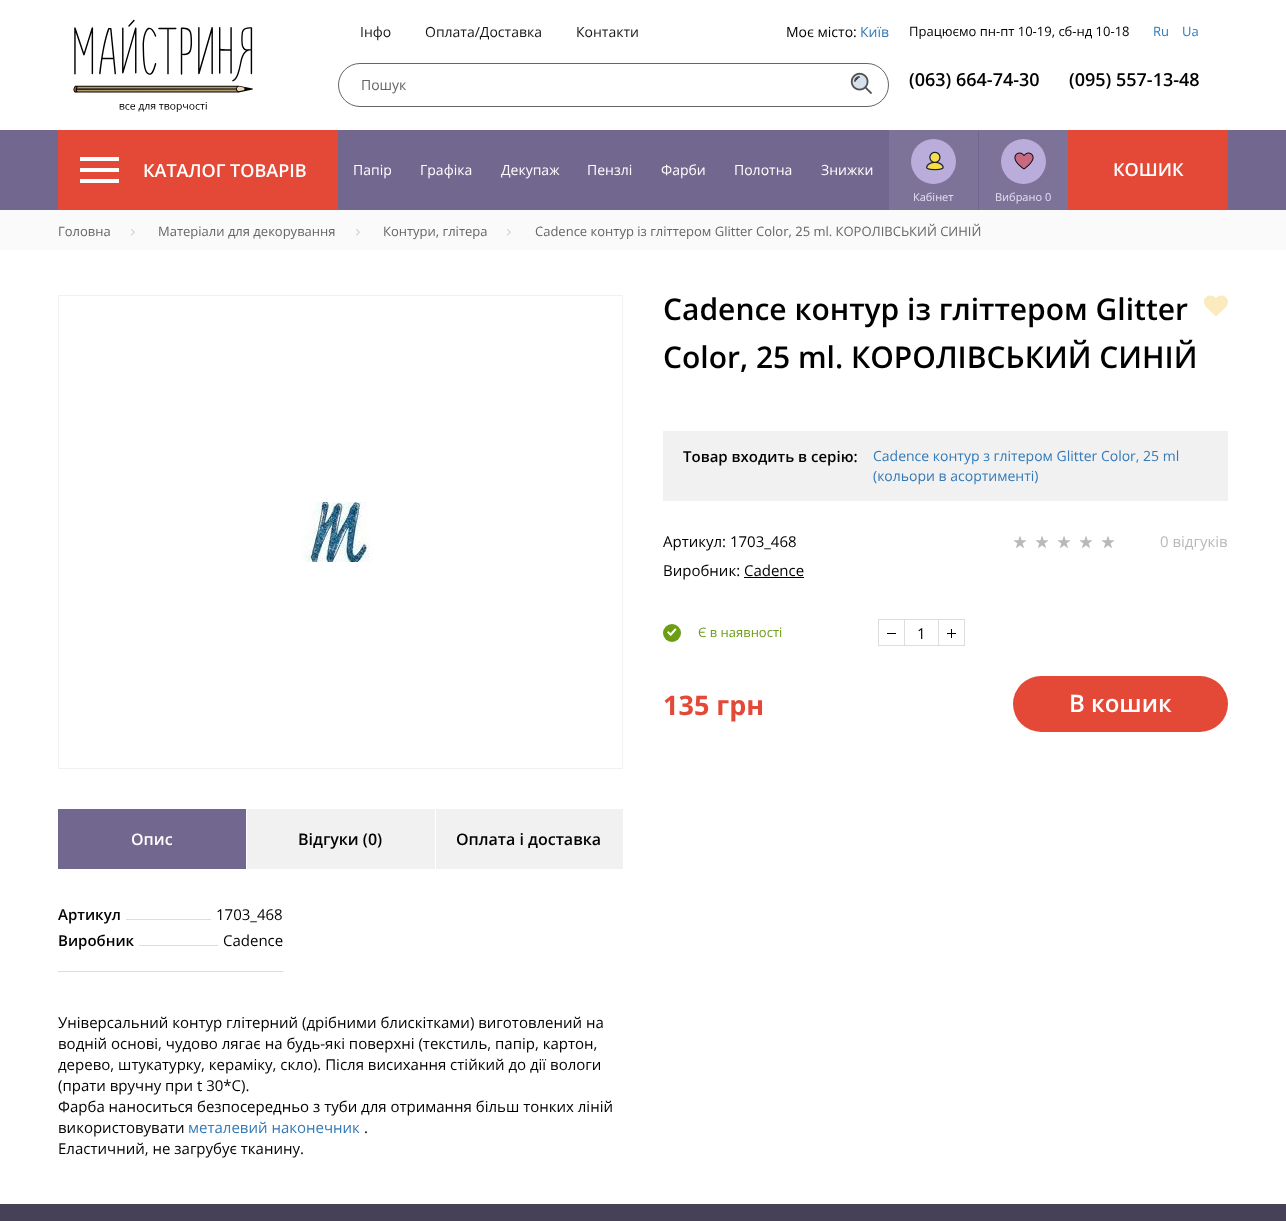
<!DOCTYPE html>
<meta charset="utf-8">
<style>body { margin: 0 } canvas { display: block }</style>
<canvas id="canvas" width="1286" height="1221"></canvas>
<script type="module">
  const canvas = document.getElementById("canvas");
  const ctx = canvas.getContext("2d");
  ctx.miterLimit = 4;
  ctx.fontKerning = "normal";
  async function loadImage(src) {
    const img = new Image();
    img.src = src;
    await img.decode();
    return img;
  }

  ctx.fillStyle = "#ffffff";
  ctx.fillRect(0, 0, 1286, 1221);
  ctx.drawImage(await loadImage("img1.png"), 73, 19, 180, 93);
  ctx.font = "14px Open Sans";
  ctx.fillStyle = "#161616";
  ctx.fillText("Інфо", 360, 37);
  ctx.fillText("Оплата/Доставка", 425, 37);
  ctx.fillText("Контакти", 576, 37);
  ctx.fillStyle = "#000000";
  ctx.fillText("Моє місто:", 786, 37);
  ctx.fillStyle = "#337ab7";
  ctx.fillText("Київ", 860, 37);
  ctx.beginPath();
  ctx.roundRect(338.5, 63.5, 550, 43, 21.5);
  ctx.strokeStyle = "#656565";
  ctx.stroke();
  ctx.fillStyle = "#ffffff";
  ctx.fillRect(359, 64, 1, 42);
  ctx.fillStyle = "#656565";
  ctx.fillText("Пошук", 361, 90);
  ctx.drawImage(await loadImage("img2.png"), 850, 72, 23, 23);
  ctx.font = "13px Open Sans";
  ctx.fillStyle = "#000000";
  ctx.fillText("Працюємо пн-пт 10-19, сб-нд 10-18", 909, 36);
  ctx.fillStyle = "#337ab7";
  ctx.fillText("Ru", 1153, 36);
  ctx.fillText("Ua", 1182, 36);
  ctx.font = "600 18px Open Sans";
  ctx.fillStyle = "#000000";
  ctx.fillText("(063) 664-74-30", 909, 86);
  ctx.fillText("(095) 557-13-48", 1069, 86);
  ctx.fillStyle = "#72678f";
  ctx.fillRect(0, 130, 1286, 80);
  ctx.fillStyle = "#e44937";
  ctx.fillRect(58, 130, 280, 80);
  ctx.fillStyle = "#ffffff";
  ctx.fillRect(80, 157, 39, 4);
  ctx.fillRect(80, 179, 39, 4);
  ctx.fillRect(80, 168, 39, 4);
  ctx.fillText("КАТАЛОГ ТОВАРІВ", 143, 177);
  ctx.font = "14px Open Sans";
  ctx.fillText("Папір", 353, 175);
  ctx.fillText("Графіка", 420, 175);
  ctx.fillText("Декупаж", 501, 175);
  ctx.fillText("Пензлі", 587, 175);
  ctx.fillText("Фарби", 661, 175);
  ctx.fillText("Полотна", 734, 175);
  ctx.fillText("Знижки", 821, 175);
  ctx.fillStyle = "#e44937";
  ctx.fillRect(1068, 130, 160, 80);
  ctx.font = "600 18px Open Sans";
  ctx.fillStyle = "#ffffff";
  ctx.fillText("КОШИК", 1113, 176);
  ctx.fillStyle = "#7d7398";
  ctx.fillRect(889, 130, 89, 80);
  ctx.fillStyle = "#baaddc";
  ctx.beginPath();
  ctx.arc(933.5, 161.5, 22.5, 0, Math.PI * 2);
  ctx.fill();
  ctx.drawImage(await loadImage("img3.png"), 926, 151, 18, 20);
  ctx.font = "11px Open Sans";
  ctx.fillStyle = "#e4def5";
  ctx.fillText("Кабінет", 913, 201);
  ctx.fillStyle = "#7d7398";
  ctx.fillRect(979, 130, 89, 80);
  ctx.fillStyle = "#baaddc";
  ctx.beginPath();
  ctx.arc(1023.5, 161.5, 22.5, 0, Math.PI * 2);
  ctx.fill();
  ctx.drawImage(await loadImage("img4.png"), 1014, 152, 20, 18);
  ctx.fillStyle = "#e4def5";
  ctx.fillText("Вибрано 0", 995, 201);
  ctx.fillStyle = "#fafafa";
  ctx.fillRect(0, 210, 1286, 40);
  ctx.font = "13px Open Sans";
  ctx.fillStyle = "#656565";
  ctx.fillText("Головна", 58, 236);
  ctx.drawImage(await loadImage("img5.png"), 131, 229, 4, 7);
  ctx.fillText("Матеріали для декорування", 158, 236);
  ctx.drawImage(await loadImage("img5.png"), 356, 229, 4, 7);
  ctx.fillText("Контури, глітера", 383, 236);
  ctx.drawImage(await loadImage("img5.png"), 507, 229, 4, 7);
  ctx.fillText("Cadence контур із гліттером Glitter Color, 25 ml. КОРОЛІВСЬКИЙ СИНІЙ", 535, 236);
  ctx.font = "600 30px Open Sans";
  ctx.fillStyle = "#000000";
  ctx.fillText("Cadence контур із гліттером Glitter", 663, 320);
  ctx.fillText("Color, 25 ml. КОРОЛІВСЬКИЙ СИНІЙ", 663, 368);
  ctx.fillStyle = "#faeabd";
  ctx.beginPath();
  ctx.moveTo(1225.5, 307.5);
  ctx.bezierCurveTo(1232.5, 300, 1223, 291, 1216, 298);
  ctx.bezierCurveTo(1210, 292, 1201.5, 297.5, 1204.5, 304.5);
  ctx.bezierCurveTo(1205.5, 307, 1208, 308.5, 1209.5, 310.5);
  ctx.lineTo(1216, 316.5);
  ctx.closePath();
  ctx.fill();
  ctx.fillStyle = "#f1f1f1";
  ctx.fillRect(663, 431, 565, 70);
  ctx.font = "600 15px Open Sans";
  ctx.fillStyle = "#000000";
  ctx.fillText("Товар входить в серію:", 683, 462);
  ctx.font = "14px Open Sans";
  ctx.fillStyle = "#337ab7";
  ctx.fillText("Cadence контур з глітером Glitter Color, 25 ml", 873, 461);
  ctx.fillText("(кольори в асортименті)", 873, 481);
  ctx.font = "15px Open Sans";
  ctx.fillStyle = "#000000";
  ctx.fillText("Артикул: 1703_468", 663, 547);
  ctx.fillText("Виробник: Cadence", 663, 576);
  ctx.fillRect(744, 577, 60, 1);
  ctx.drawImage(await loadImage("img6.png"), 1013, 536, 14, 12);
  ctx.drawImage(await loadImage("img6.png"), 1035, 536, 14, 12);
  ctx.drawImage(await loadImage("img6.png"), 1057, 536, 14, 12);
  ctx.drawImage(await loadImage("img6.png"), 1079, 536, 14, 12);
  ctx.drawImage(await loadImage("img6.png"), 1101, 536, 14, 12);
  ctx.fillStyle = "#b9b9b9";
  ctx.fillText("0 відгуків", 1160, 547);
  ctx.fillStyle = "#6c9d15";
  ctx.beginPath();
  ctx.arc(672, 633, 9, 0, Math.PI * 2);
  ctx.fill();
  ctx.drawImage(await loadImage("img7.png"), 667, 628, 10, 8);
  ctx.font = "13px Open Sans";
  ctx.fillText("Є в наявності", 698, 637);
  ctx.strokeStyle = "#dddddd";
  ctx.strokeRect(878.5, 619.5, 26, 26);
  ctx.fillStyle = "#000000";
  ctx.fillRect(887, 633, 9, 1);
  ctx.fillStyle = "#dddddd";
  ctx.fillRect(905, 619, 33, 1);
  ctx.fillRect(905, 645, 33, 1);
  ctx.font = "15px Open Sans";
  ctx.fillStyle = "#000000";
  ctx.fillText("1", 917, 639);
  ctx.strokeRect(938.5, 619.5, 26, 26);
  ctx.fillRect(947, 633, 9, 1);
  ctx.fillRect(951, 629, 1, 9);
  ctx.font = "bold 27px Open Sans";
  ctx.fillStyle = "#e44937";
  ctx.fillText("135 грн", 663, 715);
  ctx.beginPath();
  ctx.roundRect(1013, 676, 215, 56, 28);
  ctx.fill();
  ctx.font = "600 24px Open Sans";
  ctx.fillStyle = "#ffffff";
  ctx.fillText("В кошик", 1069, 712);
  ctx.strokeStyle = "#f1f1f1";
  ctx.strokeRect(58.5, 295.5, 564, 473);
  ctx.drawImage(await loadImage("img8.png"), 301, 502, 72, 60);
  ctx.fillStyle = "#72678f";
  ctx.fillRect(58, 809, 188, 60);
  ctx.font = "600 16px Open Sans";
  ctx.fillStyle = "#ffffff";
  ctx.fillText("Опис", 131, 845);
  ctx.fillStyle = "#f1f1f1";
  ctx.fillRect(247, 809, 188, 60);
  ctx.fillStyle = "#000000";
  ctx.fillText("Відгуки (0)", 298, 845);
  ctx.fillStyle = "#f1f1f1";
  ctx.fillRect(436, 809, 187, 60);
  ctx.fillStyle = "#000000";
  ctx.fillText("Оплата і доставка", 456, 845);
  ctx.font = "600 15px Open Sans";
  ctx.fillText("Артикул", 58, 920);
  ctx.fillStyle = "#dddddd";
  ctx.fillRect(126, 919, 85, 1);
  ctx.font = "15px Open Sans";
  ctx.fillStyle = "#000000";
  ctx.fillText("1703_468", 216, 920);
  ctx.font = "600 15px Open Sans";
  ctx.fillText("Виробник", 58, 946);
  ctx.fillStyle = "#dddddd";
  ctx.fillRect(139, 945, 79, 1);
  ctx.font = "15px Open Sans";
  ctx.fillStyle = "#000000";
  ctx.fillText("Cadence", 223, 946);
  ctx.fillStyle = "#dddddd";
  ctx.fillRect(58, 971, 225, 1);
  ctx.fillStyle = "#000000";
  ctx.fillText("Універсальний контур глітерний (дрібними блискітками) виготовлений на", 58, 1028);
  ctx.fillText("водній основі, чудово лягає на будь-які поверхні (текстиль, папір, картон,", 58, 1049);
  ctx.fillText("дерево, штукатурку, кераміку, скло). Після висихання стійкий до дії вологи", 58, 1070);
  ctx.fillText("(прати вручну при t 30*С).", 58, 1091);
  ctx.fillText("Фарба наноситься безпосередньо з туби для отримання більш тонких ліній", 58, 1112);
  ctx.fillText("використовувати", 58, 1133);
  ctx.fillStyle = "#337ab7";
  ctx.fillText("металевий наконечник", 188, 1133);
  ctx.fillStyle = "#000000";
  ctx.fillText(".", 364, 1133);
  ctx.fillText("Еластичний, не загрубує тканину.", 58, 1154);
  ctx.fillStyle = "#474157";
  ctx.fillRect(0, 1204, 1286, 17);
</script>
